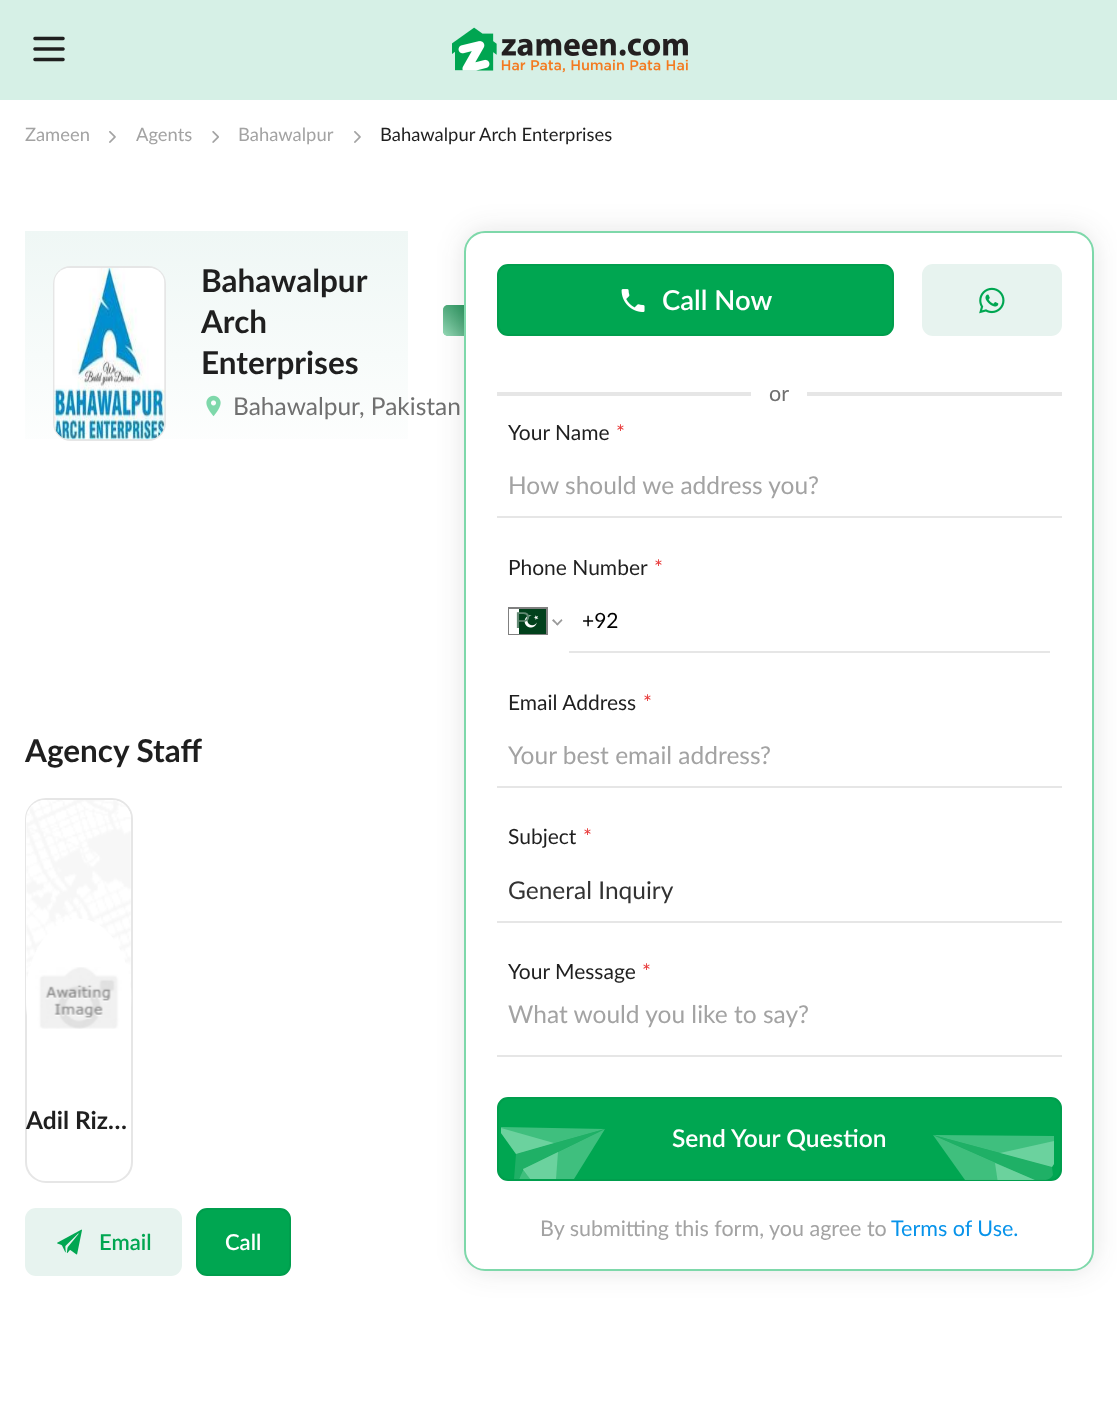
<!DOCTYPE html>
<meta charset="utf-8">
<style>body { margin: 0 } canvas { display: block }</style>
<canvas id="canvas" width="1117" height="1425"></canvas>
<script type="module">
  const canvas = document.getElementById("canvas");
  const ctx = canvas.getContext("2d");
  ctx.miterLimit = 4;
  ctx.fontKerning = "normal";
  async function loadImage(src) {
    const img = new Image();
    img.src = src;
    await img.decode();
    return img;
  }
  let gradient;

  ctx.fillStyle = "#ffffff";
  ctx.fillRect(0, 0, 1117, 1425);
  ctx.fillStyle = "#d6f0e6";
  ctx.fillRect(0, 0, 1117, 100);
  ctx.drawImage(await loadImage("img1.png"), 33, 36, 32, 26);
  ctx.drawImage(await loadImage("img2.png"), 452, 27, 236, 46);
  ctx.font = "18.4px Lato";
  ctx.fillStyle = "#a3a3a3";
  ctx.fillText("Zameen", 25, 141);
  ctx.drawImage(await loadImage("img3.png"), 109, 131, 7, 12);
  ctx.fillText("Agents", 136, 141);
  ctx.drawImage(await loadImage("img4.png"), 212, 131, 7, 12);
  ctx.fillText("Bahawalpur", 238, 141);
  ctx.drawImage(await loadImage("img3.png"), 354, 131, 7, 12);
  ctx.fillStyle = "#1f1f1f";
  ctx.fillText("Bahawalpur Arch Enterprises", 380, 141);
  gradient = ctx.createLinearGradient(216, 231, 216, 478);
  gradient.addColorStop(0, "#eff7f5");
  gradient.addColorStop(1, "#ffffff");
  ctx.fillStyle = gradient;
  ctx.fillRect(25, 231, 383, 208);
  ctx.beginPath();
  ctx.roundRect(54, 267, 111, 173, 17);
  ctx.strokeStyle = "#e6e6e6";
  ctx.lineWidth = 2;
  ctx.stroke();
  ctx.drawImage(await loadImage("img5.png"), 54, 268, 111, 172);
  ctx.font = "bold 31.5px Lato";
  ctx.fillStyle = "#1f1f1f";
  ctx.fillText("Bahawalpur", 201, 292);
  ctx.fillText("Arch", 201, 333);
  ctx.fillText("Enterprises", 201, 374);
  ctx.fillStyle = "#00a651";
  ctx.beginPath();
  ctx.roundRect(443, 305, 75, 31, 5);
  ctx.fill();
  gradient = ctx.createLinearGradient(454, 347, 507, 293);
  gradient.addColorStop(0, "rgba(255, 255, 255, 0.6)");
  gradient.addColorStop(1, "rgba(0, 0, 0, 0.13)");
  ctx.fillStyle = gradient;
  ctx.beginPath();
  ctx.roundRect(443, 305, 75, 31, 5);
  ctx.fill();
  ctx.drawImage(await loadImage("img6.png"), 206, 395, 15, 22);
  ctx.font = "24.5px Lato";
  ctx.fillStyle = "#707070";
  ctx.fillText("Bahawalpur", 233, 415);
  ctx.fillText(", Pakistan", 359, 415);
  ctx.font = "bold 31.5px Lato";
  ctx.fillStyle = "#1f1f1f";
  ctx.fillText("Agency Staff", 25, 762);
  ctx.beginPath();
  ctx.roundRect(26, 799, 106, 383, 20);
  ctx.stroke();
  ctx.fillStyle = "#ffffff";
  ctx.beginPath();
  ctx.roundRect(26, 800, 105, 199, [19, 19, 0, 0]);
  ctx.fill();
  ctx.drawImage(await loadImage("img7.png"), 26, 800, 105, 197);
  ctx.beginPath();
  ctx.ellipse(78.5, 997.5, 52.5, 79, 0, 0, Math.PI * 2);
  ctx.fill();
  ctx.drawImage(await loadImage("img8.png"), 26, 967, 106, 62);
  ctx.font = "bold 24.5px Lato";
  ctx.fillStyle = "#1f1f1f";
  ctx.fillText("Adil Riz…", 26, 1129);
  ctx.fillStyle = "#e7f3ef";
  ctx.beginPath();
  ctx.roundRect(25, 1208, 157, 68, 11);
  ctx.fill();
  ctx.drawImage(await loadImage("img9.png"), 57, 1229, 25, 26);
  ctx.font = "600 22px Lato";
  ctx.fillStyle = "#00a651";
  ctx.fillText("Email", 99, 1250);
  ctx.beginPath();
  ctx.roundRect(197, 1209, 93, 66, 10);
  ctx.fill();
  ctx.strokeStyle = "#009e4d";
  ctx.stroke();
  ctx.fillStyle = "#ffffff";
  ctx.fillText("Call", 225, 1250);
  ctx.fillStyle = "rgba(30, 30, 30, 0.12)";
  ctx.filter = "blur(14px)";
  ctx.beginPath();
  ctx.roundRect(464, 231, 630, 1040, 21);
  ctx.fill();
  ctx.filter = "none";
  ctx.fillStyle = "#ffffff";
  ctx.beginPath();
  ctx.roundRect(465, 232, 628, 1038, 20);
  ctx.fill();
  ctx.strokeStyle = "#7ed8aa";
  ctx.stroke();
  ctx.fillStyle = "#00a651";
  ctx.beginPath();
  ctx.roundRect(498, 265, 395, 70, 10);
  ctx.fill();
  ctx.strokeStyle = "#009e4d";
  ctx.stroke();
  ctx.drawImage(await loadImage("img10.png"), 621, 289, 24, 23);
  ctx.font = "600 27.5px Lato";
  ctx.fillStyle = "#ffffff";
  ctx.fillText("Call Now", 662, 310);
  ctx.fillStyle = "#e7f3ef";
  ctx.beginPath();
  ctx.roundRect(922, 264, 140, 72, 11);
  ctx.fill();
  ctx.drawImage(await loadImage("img11.png"), 979, 287, 26, 27);
  ctx.fillStyle = "#e6e6e6";
  ctx.fillRect(497, 392, 254, 4);
  ctx.font = "21.5px Lato";
  ctx.fillStyle = "#707070";
  ctx.fillText("or", 769, 401);
  ctx.fillStyle = "#e6e6e6";
  ctx.fillRect(807, 392, 255, 4);
  ctx.font = "21px Lato";
  ctx.fillStyle = "#1f1f1f";
  ctx.fillText("Your Name", 508, 440);
  ctx.fillStyle = "#e83a3a";
  ctx.fillText("*", 616, 440);
  ctx.fillStyle = "#e6e6e6";
  ctx.fillRect(497, 516, 565, 2);
  ctx.font = "24.5px Lato";
  ctx.fillStyle = "#a3a3a3";
  ctx.fillText("How should we address you?", 508, 494);
  ctx.font = "21px Lato";
  ctx.fillStyle = "#1f1f1f";
  ctx.fillText("Phone Number", 508, 575);
  ctx.fillStyle = "#e83a3a";
  ctx.fillText("*", 654, 575);
  ctx.strokeStyle = "#808080";
  ctx.strokeRect(509, 608, 38, 26);
  ctx.drawImage(await loadImage("img12.png"), 509, 609, 37, 25);
  ctx.font = "23px Liberation Sans";
  ctx.fillStyle = "#638a74";
  ctx.fillText("P", 515, 628);
  ctx.fillStyle = "#9a9a9a";
  ctx.beginPath();
  ctx.moveTo(561.5, 619);
  ctx.lineTo(562.5, 620.5);
  ctx.lineTo(557.5, 625.5);
  ctx.lineTo(556, 624.5);
  ctx.closePath();
  ctx.fill();
  ctx.beginPath();
  ctx.moveTo(553.5, 619);
  ctx.lineTo(558.5, 624.5);
  ctx.lineTo(557.5, 625.5);
  ctx.lineTo(552, 620.5);
  ctx.closePath();
  ctx.fill();
  ctx.fillStyle = "#e6e6e6";
  ctx.fillRect(569, 651, 481, 2);
  ctx.font = "21px Lato";
  ctx.fillStyle = "#000000";
  ctx.fillText("+92", 582, 628);
  ctx.fillStyle = "#1f1f1f";
  ctx.fillText("Email Address", 508, 710);
  ctx.fillStyle = "#e83a3a";
  ctx.fillText("*", 643, 710);
  ctx.fillStyle = "#e6e6e6";
  ctx.fillRect(497, 786, 565, 2);
  ctx.font = "24.5px Lato";
  ctx.fillStyle = "#a3a3a3";
  ctx.fillText("Your best email address?", 508, 764);
  ctx.font = "21px Lato";
  ctx.fillStyle = "#1f1f1f";
  ctx.fillText("Subject", 508, 844);
  ctx.fillStyle = "#e83a3a";
  ctx.fillText("*", 583, 844);
  ctx.fillStyle = "#e6e6e6";
  ctx.fillRect(497, 921, 565, 2);
  ctx.font = "24.5px Lato";
  ctx.fillStyle = "#333333";
  ctx.fillText("General Inquiry", 508, 899);
  ctx.font = "21px Lato";
  ctx.fillStyle = "#1f1f1f";
  ctx.fillText("Your Message", 508, 979);
  ctx.fillStyle = "#e83a3a";
  ctx.fillText("*", 642, 979);
  ctx.fillStyle = "#e6e6e6";
  ctx.fillRect(497, 1055, 565, 2);
  ctx.font = "24.5px Lato";
  ctx.fillStyle = "#a3a3a3";
  ctx.fillText("What would you like to say?", 508, 1023);
  ctx.fillStyle = "#00a651";
  ctx.beginPath();
  ctx.roundRect(498, 1098, 563, 82, 10);
  ctx.fill();
  ctx.strokeStyle = "#009e4d";
  ctx.stroke();
  ctx.fillStyle = "#3fbf7e";
  ctx.beginPath();
  ctx.moveTo(605, 1129);
  ctx.lineTo(574, 1179);
  ctx.lineTo(530, 1179);
  ctx.lineTo(523, 1169);
  ctx.closePath();
  ctx.fill();
  ctx.beginPath();
  ctx.moveTo(501, 1133);
  ctx.lineTo(501, 1127);
  ctx.lineTo(605, 1129);
  ctx.lineTo(516, 1154);
  ctx.closePath();
  ctx.fill();
  ctx.fillStyle = "rgba(62, 186, 123, 0.5)";
  ctx.beginPath();
  ctx.moveTo(605, 1129);
  ctx.lineTo(523, 1169);
  ctx.lineTo(520, 1179);
  ctx.lineTo(514, 1179);
  ctx.lineTo(516, 1154);
  ctx.closePath();
  ctx.fill();
  ctx.fillStyle = "rgba(126, 216, 170, 0.5)";
  ctx.beginPath();
  ctx.moveTo(530, 1179);
  ctx.lineTo(519.5, 1179);
  ctx.lineTo(523.5, 1168.5);
  ctx.closePath();
  ctx.fill();
  ctx.fillStyle = "rgba(152, 230, 190, 0.5)";
  ctx.beginPath();
  ctx.moveTo(556, 1179);
  ctx.lineTo(530, 1179);
  ctx.lineTo(523, 1169);
  ctx.lineTo(558, 1152);
  ctx.closePath();
  ctx.fill();
  ctx.beginPath();
  ctx.moveTo(554, 1143);
  ctx.lineTo(516, 1154);
  ctx.lineTo(501, 1133);
  ctx.lineTo(501, 1128);
  ctx.closePath();
  ctx.fill();
  ctx.font = "600 24.5px Lato";
  ctx.fillStyle = "#ffffff";
  ctx.fillText("Send Your Question", 672, 1147);
  ctx.fillStyle = "rgba(126, 216, 170, 0.5)";
  ctx.beginPath();
  ctx.moveTo(933, 1135);
  ctx.lineTo(1035, 1180);
  ctx.lineTo(965, 1180);
  ctx.closePath();
  ctx.fill();
  ctx.fillStyle = "#3fbf7e";
  ctx.beginPath();
  ctx.moveTo(1054, 1164);
  ctx.lineTo(1052, 1167);
  ctx.lineTo(933, 1135);
  ctx.lineTo(1054, 1136);
  ctx.closePath();
  ctx.fill();
  ctx.save();
  ctx.beginPath();
  ctx.rect(933, 1076, 121, 104);
  ctx.clip();
  ctx.fillStyle = "rgba(62, 186, 123, 0.5)";
  ctx.beginPath();
  ctx.moveTo(933, 1135);
  ctx.lineTo(1052, 1167);
  ctx.lineTo(1053, 1175);
  ctx.bezierCurveTo(1049, 1182, 1041, 1180, 1035, 1180);
  ctx.closePath();
  ctx.fill();
  ctx.restore();
  ctx.fillStyle = "rgba(152, 230, 190, 0.5)";
  ctx.beginPath();
  ctx.moveTo(1035, 1180);
  ctx.lineTo(997.5, 1180);
  ctx.lineTo(995, 1163);
  ctx.closePath();
  ctx.fill();
  ctx.beginPath();
  ctx.moveTo(1000, 1153);
  ctx.lineTo(1054, 1141);
  ctx.lineTo(1054, 1164);
  ctx.lineTo(1052, 1167);
  ctx.closePath();
  ctx.fill();
  ctx.font = "21.5px Lato";
  ctx.fillStyle = "#a3a3a3";
  ctx.fillText("By submitting this form, you agree to", 540, 1236);
  ctx.fillStyle = "#0793ea";
  ctx.fillText("Terms of Use.", 891, 1236);
</script>
